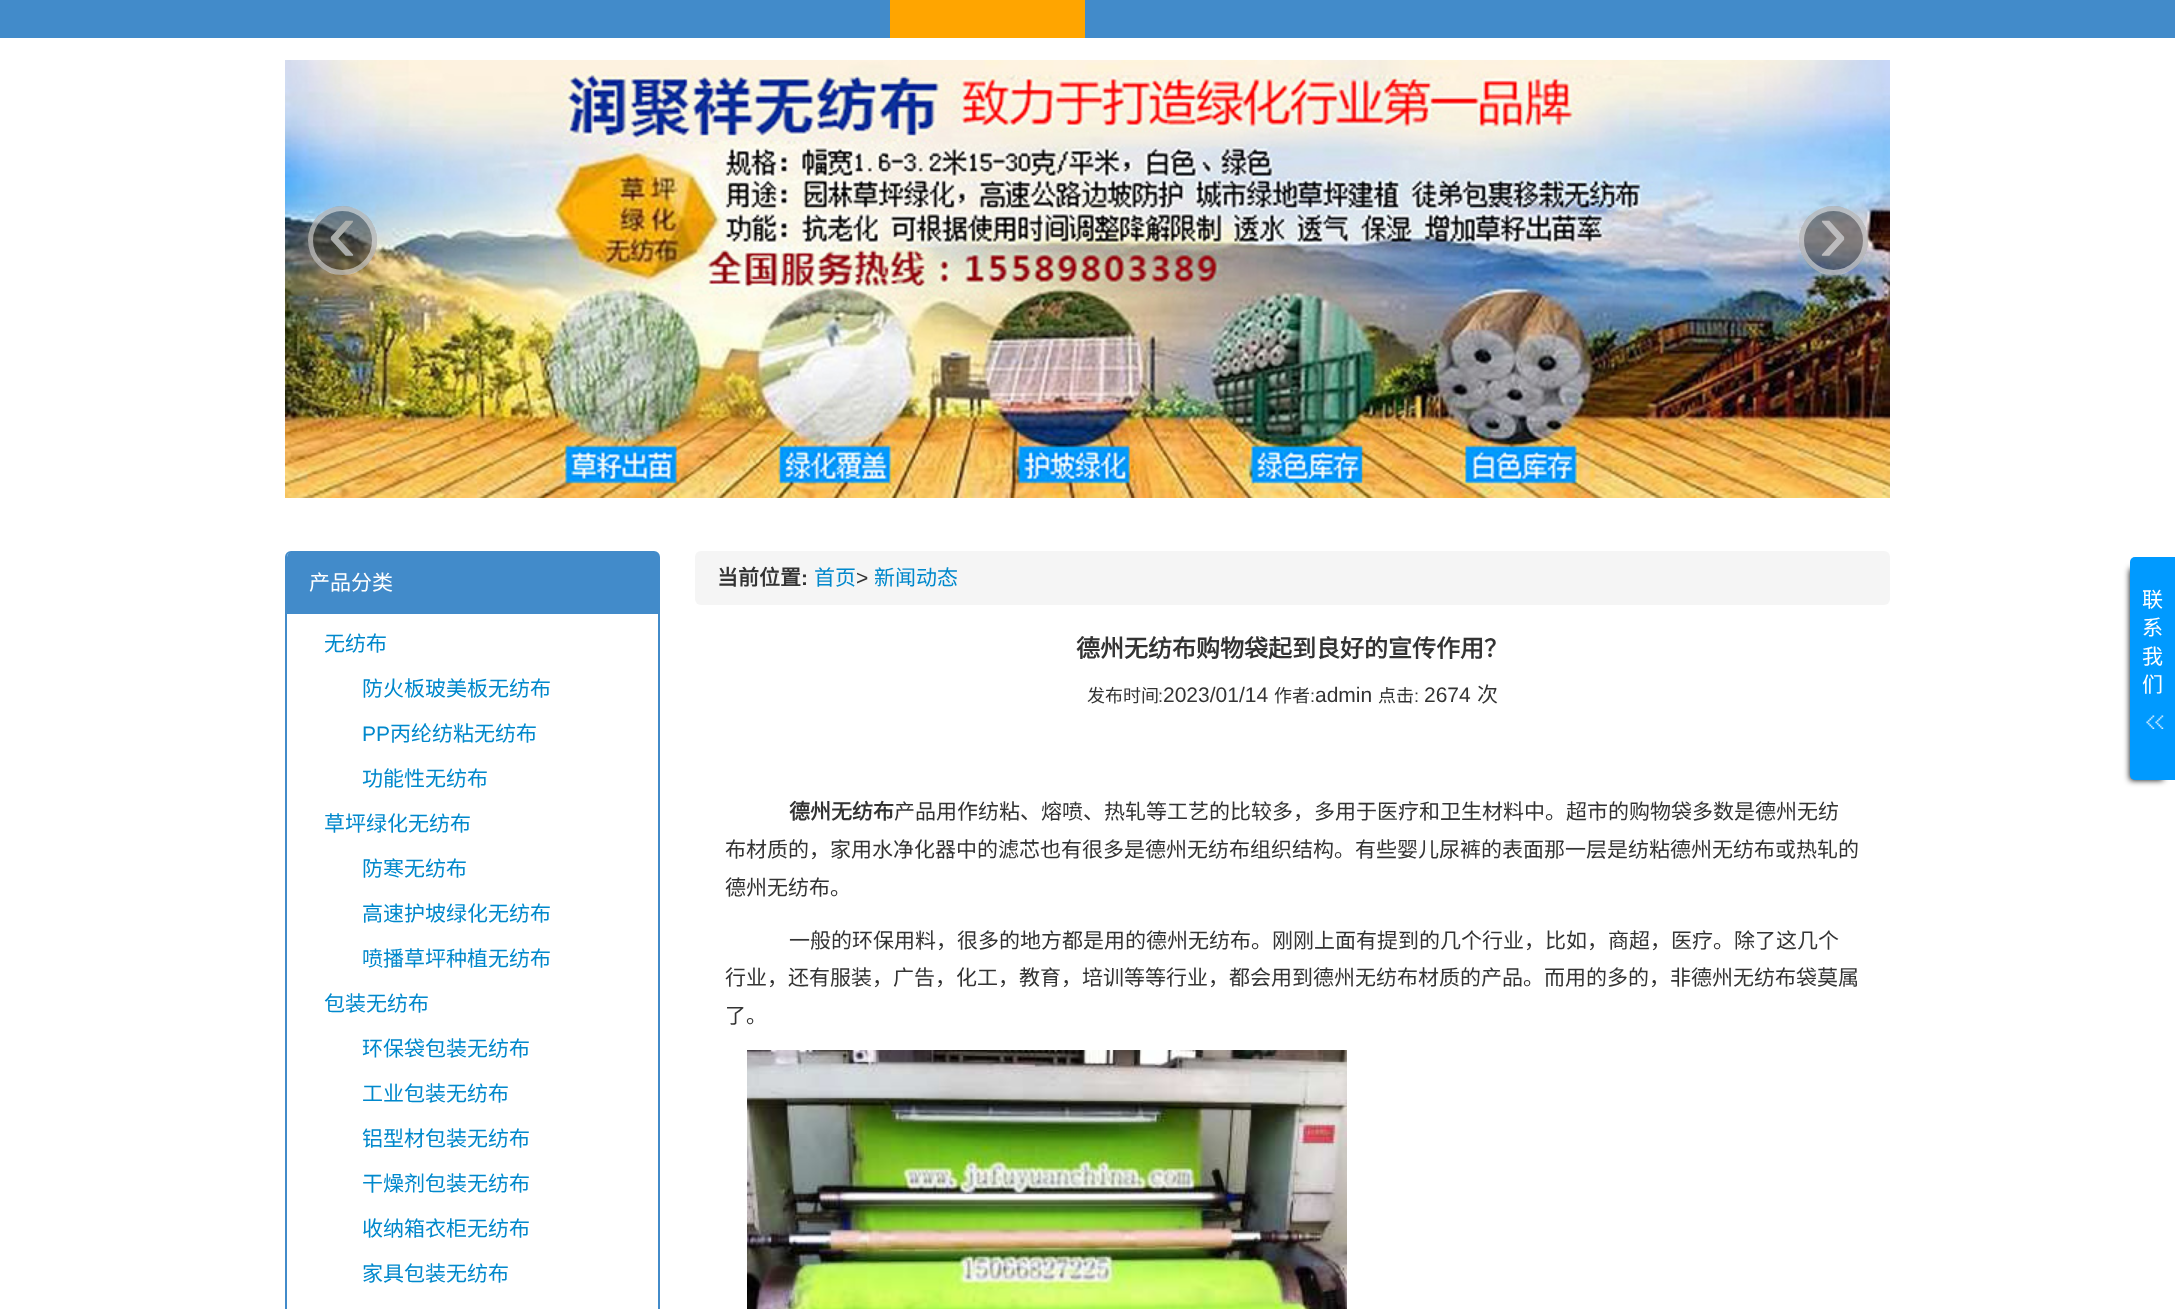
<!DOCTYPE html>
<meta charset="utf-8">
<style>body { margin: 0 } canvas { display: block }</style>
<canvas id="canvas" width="2175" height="1309"></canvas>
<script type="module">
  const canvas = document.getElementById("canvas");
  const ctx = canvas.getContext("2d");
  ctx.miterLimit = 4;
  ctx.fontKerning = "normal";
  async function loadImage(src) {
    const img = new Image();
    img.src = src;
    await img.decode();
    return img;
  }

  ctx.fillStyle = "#ffffff";
  ctx.fillRect(0, 0, 2175, 1309);
  ctx.fillStyle = "#428bca";
  ctx.fillRect(0, 0, 2175, 38);
  ctx.fillStyle = "#ffa500";
  ctx.fillRect(890, 0, 195, 38);
  ctx.drawImage(await loadImage("img1.png"), 285, 60, 1605, 438);
  ctx.fillStyle = "rgba(34, 34, 34, 0.5)";
  ctx.beginPath();
  ctx.arc(342.5, 240.5, 34.5, 0, Math.PI * 2);
  ctx.fill();
  ctx.beginPath();
  ctx.arc(342.5, 240.5, 32, 0, Math.PI * 2);
  ctx.strokeStyle = "rgba(255, 255, 255, 0.5)";
  ctx.lineWidth = 5;
  ctx.stroke();
  ctx.font = "90px Liberation Sans";
  ctx.fillStyle = "#aaadaa";
  ctx.fillText("‹", 327, 262);
  ctx.fillStyle = "rgba(34, 34, 34, 0.5)";
  ctx.beginPath();
  ctx.arc(1833.5, 240.5, 34.5, 0, Math.PI * 2);
  ctx.fill();
  ctx.beginPath();
  ctx.arc(1833.5, 240.5, 32, 0, Math.PI * 2);
  ctx.stroke();
  ctx.fillStyle = "#bdbcbe";
  ctx.fillText("›", 1818, 262);
  ctx.beginPath();
  ctx.roundRect(286, 552, 373, 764, 5);
  ctx.strokeStyle = "#428bca";
  ctx.lineWidth = 2;
  ctx.stroke();
  ctx.fillStyle = "#428bca";
  ctx.beginPath();
  ctx.roundRect(287, 552, 372, 62, [5, 5, 0, 0]);
  ctx.fill();
  ctx.font = "21px Noto Sans CJK SC";
  ctx.fillStyle = "#ffffff";
  ctx.fillText("产品分类", 309, 590);
  ctx.fillStyle = "#0088cc";
  ctx.fillText("无纺布", 324, 651);
  ctx.fillText("防火板玻美板无纺布", 362, 696);
  ctx.font = "21px Liberation Sans";
  ctx.fillText("PP", 362, 741);
  ctx.font = "21px Noto Sans CJK SC";
  ctx.fillText("丙纶纺粘无纺布", 390, 741);
  ctx.fillText("功能性无纺布", 362, 786);
  ctx.fillText("草坪绿化无纺布", 324, 831);
  ctx.fillText("防寒无纺布", 362, 876);
  ctx.fillText("高速护坡绿化无纺布", 362, 921);
  ctx.fillText("喷播草坪种植无纺布", 362, 966);
  ctx.fillText("包装无纺布", 324, 1011);
  ctx.fillText("环保袋包装无纺布", 362, 1056);
  ctx.fillText("工业包装无纺布", 362, 1101);
  ctx.fillText("铝型材包装无纺布", 362, 1146);
  ctx.fillText("干燥剂包装无纺布", 362, 1191);
  ctx.fillText("收纳箱衣柜无纺布", 362, 1236);
  ctx.fillText("家具包装无纺布", 362, 1281);
  ctx.fillStyle = "#f5f5f5";
  ctx.beginPath();
  ctx.roundRect(695, 551, 1195, 54, 6);
  ctx.fill();
  ctx.font = "bold 21px Noto Sans CJK SC";
  ctx.fillStyle = "#333333";
  ctx.fillText("当前位置", 717, 585);
  ctx.font = "bold 21px Liberation Sans";
  ctx.fillText(":", 801, 585);
  ctx.font = "21px Noto Sans CJK SC";
  ctx.fillStyle = "#0088cc";
  ctx.fillText("首页", 814, 585);
  ctx.font = "21px Liberation Sans";
  ctx.fillStyle = "#333333";
  ctx.fillText(">", 856, 585);
  ctx.font = "21px Noto Sans CJK SC";
  ctx.fillStyle = "#0088cc";
  ctx.fillText("新闻动态", 874, 585);
  ctx.font = "bold 24px Noto Sans CJK SC";
  ctx.fillStyle = "#333333";
  ctx.fillText("德州无纺布购物袋起到良好的宣传作用？", 1076, 657);
  ctx.font = "18px Noto Sans CJK SC";
  ctx.fillText("发布时间", 1087, 702);
  ctx.font = "18px Liberation Sans";
  ctx.fillText(":", 1158, 702);
  ctx.font = "21px Liberation Sans";
  ctx.fillText("2023/01/14", 1163, 702);
  ctx.font = "18px Noto Sans CJK SC";
  ctx.fillText("作者", 1274, 702);
  ctx.font = "18px Liberation Sans";
  ctx.fillText(":", 1310, 702);
  ctx.font = "21px Liberation Sans";
  ctx.fillText("admin", 1315, 702);
  ctx.font = "18px Noto Sans CJK SC";
  ctx.fillText("点击", 1378, 702);
  ctx.font = "18px Liberation Sans";
  ctx.fillText(":", 1414, 702);
  ctx.font = "21px Liberation Sans";
  ctx.fillText("2674", 1424, 702);
  ctx.font = "21px Noto Sans CJK SC";
  ctx.fillText("次", 1477, 702);
  ctx.font = "bold 21px Noto Sans CJK SC";
  ctx.fillText("德州无纺布", 789, 819);
  ctx.font = "21px Noto Sans CJK SC";
  ctx.fillText("产品用作纺粘、熔喷、热轧等工艺的比较多，多用于医疗和卫生材料中。超市的购物袋多数是德州无纺", 894, 819);
  ctx.fillText("布材质的，家用水净化器中的滤芯也有很多是德州无纺布组织结构。有些婴儿尿裤的表面那一层是纺粘德州无纺布或热轧的", 725, 857);
  ctx.fillText("德州无纺布。", 725, 895);
  ctx.fillText("一般的环保用料，很多的地方都是用的德州无纺布。刚刚上面有提到的几个行业，比如，商超，医疗。除了这几个", 789, 948);
  ctx.fillText("行业，还有服装，广告，化工，教育，培训等等行业，都会用到德州无纺布材质的产品。而用的多的，非德州无纺布袋莫属", 725, 985);
  ctx.fillText("了。", 725, 1023);
  ctx.drawImage(await loadImage("img2.png"), 747, 1050, 600, 259);
  ctx.fillStyle = "#000000";
  ctx.filter = "blur(3px)";
  ctx.beginPath();
  ctx.rect(2130, 569, 33, 211);
  ctx.fill();
  ctx.filter = "none";
  ctx.fillStyle = "#009aff";
  ctx.beginPath();
  ctx.roundRect(2130, 557, 45, 223, [5, 0, 0, 5]);
  ctx.fill();
  ctx.fillStyle = "#ffffff";
  ctx.fillText("联", 2142, 607);
  ctx.fillText("系", 2142, 635);
  ctx.fillText("我", 2142, 664);
  ctx.fillText("们", 2142, 692);
  ctx.drawImage(await loadImage("img3.png"), 2146, 715, 18, 14);
</script>
